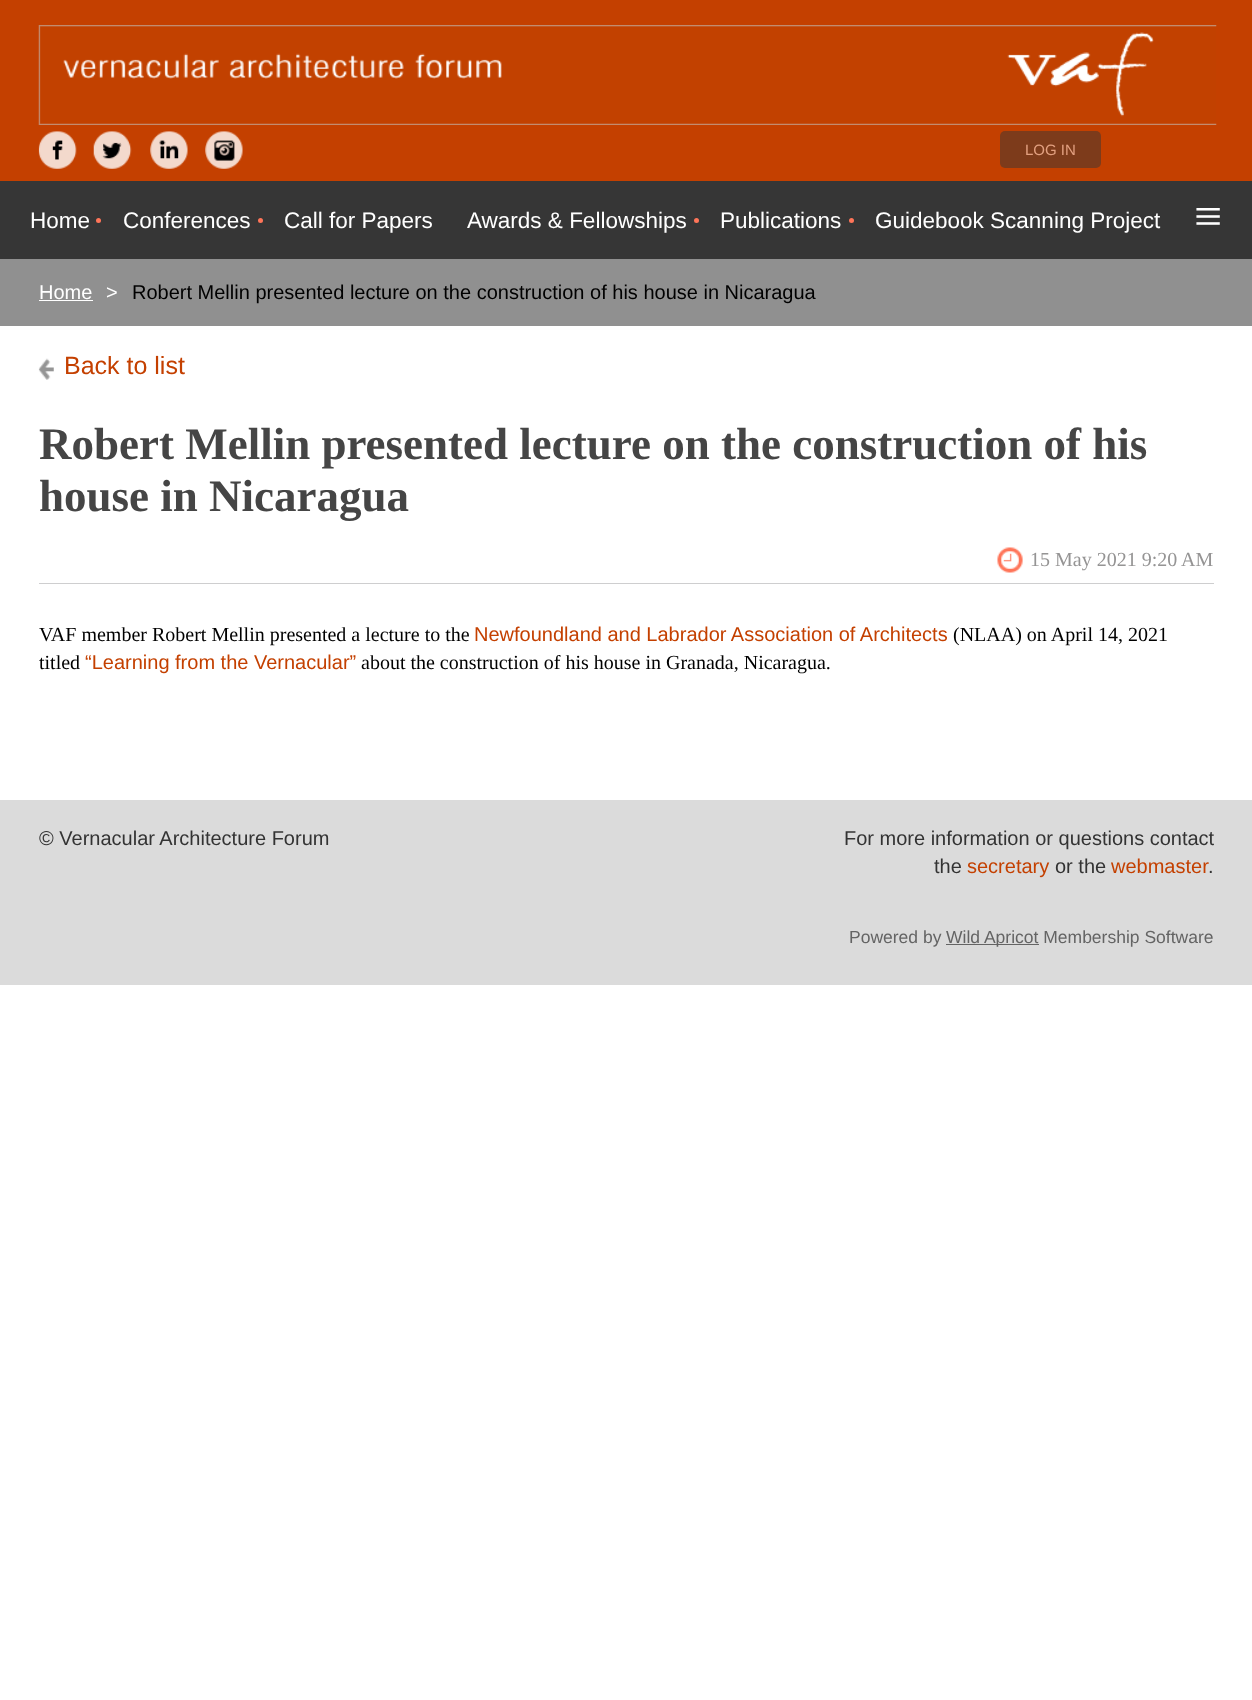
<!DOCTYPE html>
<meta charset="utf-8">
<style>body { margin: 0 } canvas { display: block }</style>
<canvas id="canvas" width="1252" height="1700"></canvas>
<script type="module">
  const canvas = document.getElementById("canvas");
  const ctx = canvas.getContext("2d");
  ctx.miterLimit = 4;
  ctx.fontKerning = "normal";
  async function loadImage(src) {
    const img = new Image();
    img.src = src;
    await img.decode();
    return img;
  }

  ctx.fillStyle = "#ffffff";
  ctx.fillRect(0, 0, 1252, 1700);
  ctx.fillStyle = "#c44000";
  ctx.fillRect(0, 0, 1252, 181);
  ctx.drawImage(await loadImage("img1.png"), 38, 25, 1179, 100);
  ctx.drawImage(await loadImage("img2.png"), 38, 131, 39, 38);
  ctx.drawImage(await loadImage("img3.png"), 93, 131, 39, 38);
  ctx.drawImage(await loadImage("img4.png"), 150, 131, 38, 38);
  ctx.drawImage(await loadImage("img5.png"), 205, 131, 38, 38);
  ctx.fillStyle = "#7d3b1b";
  ctx.beginPath();
  ctx.roundRect(1000, 131, 101, 37, 5);
  ctx.fill();
  ctx.font = "15px Liberation Sans";
  ctx.fillStyle = "#e2a080";
  ctx.fillText("LOG IN", 1025, 155);
  ctx.fillStyle = "#363636";
  ctx.fillRect(0, 181, 1252, 78);
  ctx.font = "22.5px Liberation Sans";
  ctx.fillStyle = "#ffffff";
  ctx.fillText("Home", 30, 228);
  ctx.fillStyle = "#ff7559";
  ctx.beginPath();
  ctx.arc(98.5, 220.5, 2.5, 0, Math.PI * 2);
  ctx.fill();
  ctx.fillStyle = "#ffffff";
  ctx.fillText("Conferences", 123, 228);
  ctx.fillStyle = "#ff7559";
  ctx.beginPath();
  ctx.arc(260.5, 220.5, 2.5, 0, Math.PI * 2);
  ctx.fill();
  ctx.fillStyle = "#ffffff";
  ctx.fillText("Call for Papers", 284, 228);
  ctx.fillText("Awards & Fellowships", 467, 228);
  ctx.fillStyle = "#ff7559";
  ctx.beginPath();
  ctx.arc(696.5, 220.5, 2.5, 0, Math.PI * 2);
  ctx.fill();
  ctx.fillStyle = "#ffffff";
  ctx.fillText("Publications", 720, 228);
  ctx.fillStyle = "#ff7559";
  ctx.beginPath();
  ctx.arc(851.5, 220.5, 2.5, 0, Math.PI * 2);
  ctx.fill();
  ctx.fillStyle = "#ffffff";
  ctx.fillText("Guidebook Scanning Project", 875, 228);
  ctx.font = "50px Liberation Serif";
  ctx.fillText("≡", 1194, 233);
  ctx.fillStyle = "#909090";
  ctx.fillRect(0, 259, 1252, 67);
  ctx.font = "20px Liberation Sans";
  ctx.fillStyle = "#ffffff";
  ctx.fillText("Home", 39, 299);
  ctx.fillRect(39, 300, 54, 1);
  ctx.fillText(">", 106, 299);
  ctx.fillStyle = "#000000";
  ctx.fillText("Robert Mellin presented lecture on the construction of his house in Nicaragua", 132, 299);
  ctx.drawImage(await loadImage("img6.png"), 38, 358, 16, 22);
  ctx.font = "25px Liberation Sans";
  ctx.fillStyle = "#c44000";
  ctx.fillText("Back to list", 64, 374);
  ctx.font = "bold 45px Liberation Serif";
  ctx.fillStyle = "#454545";
  ctx.fillText("Robert Mellin presented lecture on the construction of his", 39, 459);
  ctx.fillText("house in Nicaragua", 39, 511);
  ctx.fillStyle = "#cececf";
  ctx.fillRect(39, 583, 1175, 1);
  ctx.drawImage(await loadImage("img7.png"), 997, 547, 26, 26);
  ctx.font = "20px Liberation Serif";
  ctx.fillStyle = "#959494";
  ctx.fillText("15 May 2021 9:20 AM", 1030, 566);
  ctx.fillStyle = "#000000";
  ctx.fillText("VAF member Robert Mellin presented a lecture to the", 39, 641);
  ctx.font = "20px Liberation Sans";
  ctx.fillStyle = "#c44000";
  ctx.fillText("Newfoundland and Labrador Association of Architects", 474, 641);
  ctx.font = "20px Liberation Serif";
  ctx.fillStyle = "#000000";
  ctx.fillText("(NLAA) on April 14, 2021", 953, 641);
  ctx.fillText("titled", 39, 669);
  ctx.font = "20px Liberation Sans";
  ctx.fillStyle = "#c44000";
  ctx.fillText("“Learning from the Vernacular”", 85, 669);
  ctx.font = "20px Liberation Serif";
  ctx.fillStyle = "#000000";
  ctx.fillText("about the construction of his house in Granada, Nicaragua.", 361, 669);
  ctx.fillStyle = "#dbdbdb";
  ctx.fillRect(0, 800, 1252, 185);
  ctx.font = "20px Liberation Sans";
  ctx.fillStyle = "#333333";
  ctx.fillText("© Vernacular Architecture Forum", 39, 845);
  ctx.fillText("For more information or questions contact", 844, 845);
  ctx.fillText("the", 934, 873);
  ctx.fillStyle = "#c44000";
  ctx.fillText("secretary", 967, 873);
  ctx.fillStyle = "#333333";
  ctx.fillText("or the", 1055, 873);
  ctx.fillStyle = "#c44000";
  ctx.fillText("webmaster", 1111, 873);
  ctx.fillStyle = "#333333";
  ctx.fillText(".", 1208, 873);
  ctx.font = "17.5px Liberation Sans";
  ctx.fillStyle = "#646464";
  ctx.fillText("Powered by", 849, 943);
  ctx.fillRect(946, 944, 93, 1);
  ctx.fillText("Wild Apricot Membership Software", 946, 943);
</script>
